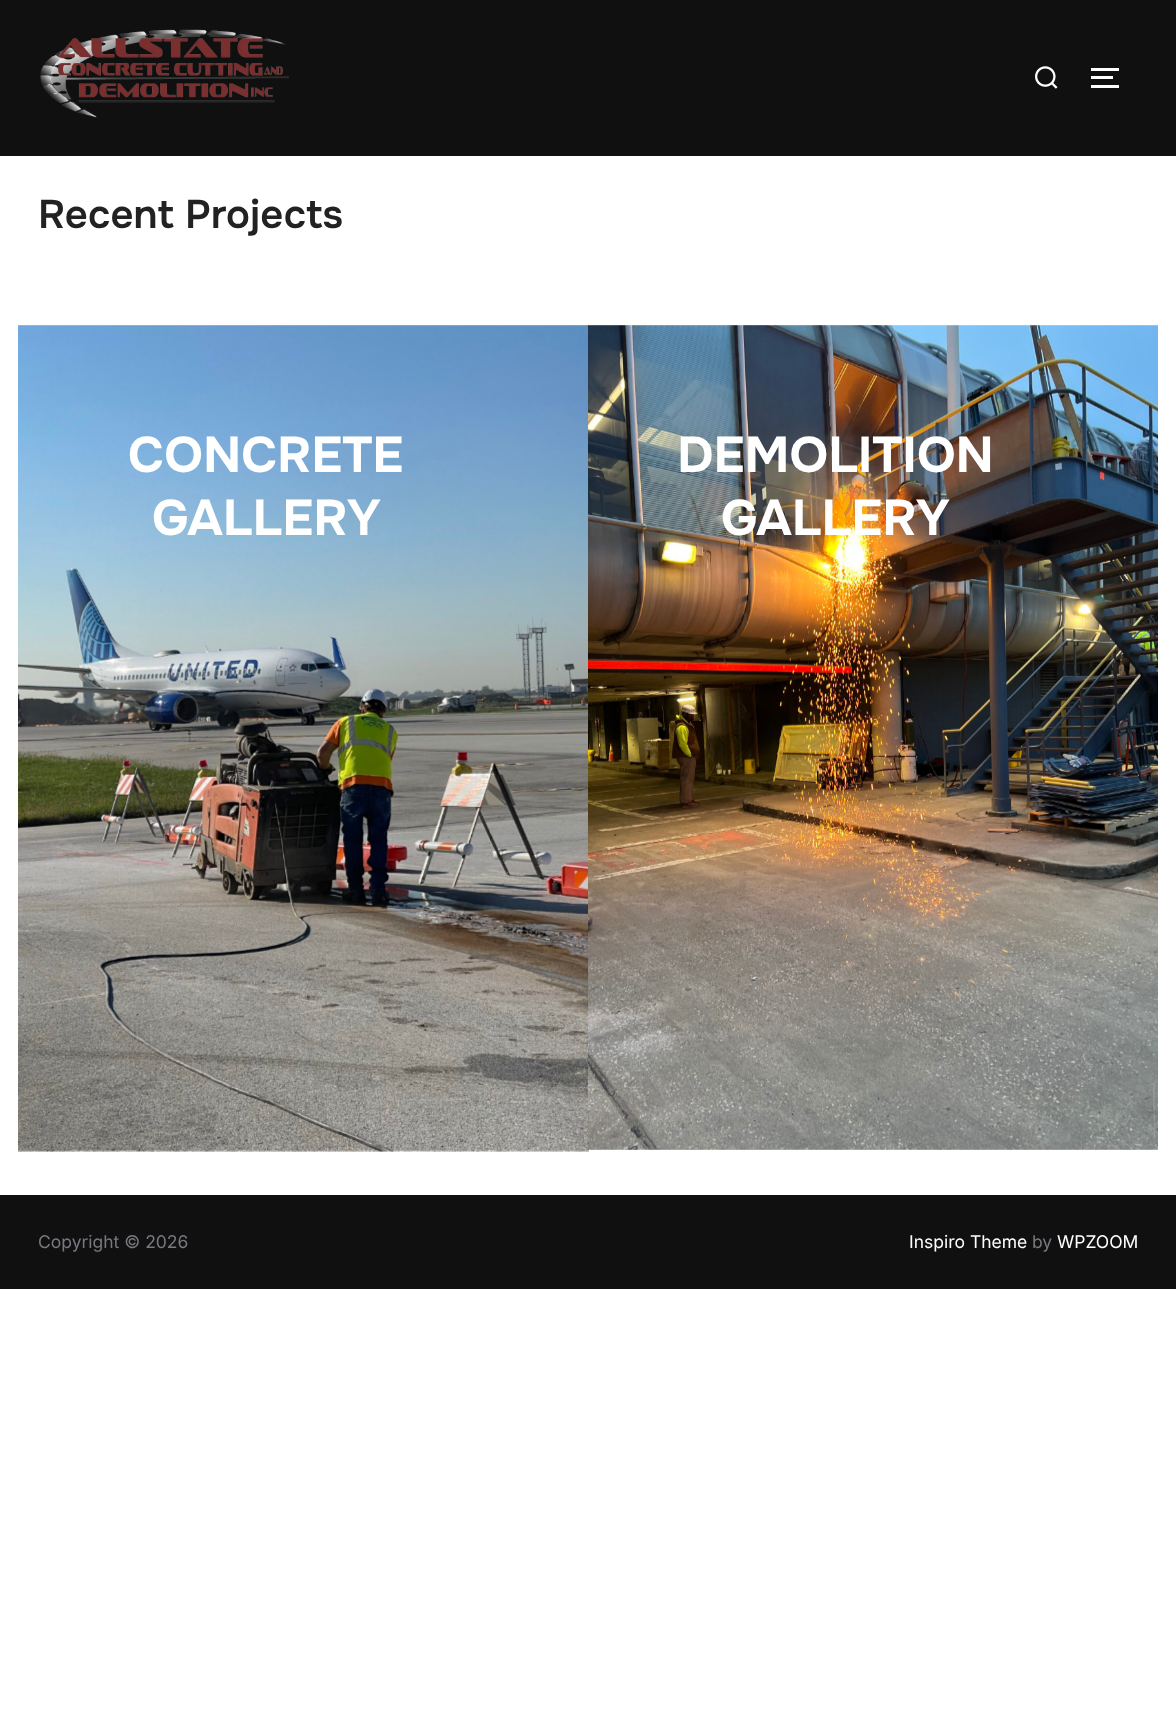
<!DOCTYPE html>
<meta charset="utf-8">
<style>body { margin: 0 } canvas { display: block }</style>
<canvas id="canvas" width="1176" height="1715"></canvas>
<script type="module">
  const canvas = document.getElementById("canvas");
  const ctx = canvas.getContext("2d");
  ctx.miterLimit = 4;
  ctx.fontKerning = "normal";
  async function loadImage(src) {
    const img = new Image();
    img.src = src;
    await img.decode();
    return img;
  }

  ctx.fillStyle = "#ffffff";
  ctx.fillRect(0, 0, 1176, 1715);
  ctx.fillStyle = "#101010";
  ctx.fillRect(0, 0, 1176, 156);
  ctx.drawImage(await loadImage("img1.png"), 40, 29, 249, 89);
  ctx.drawImage(await loadImage("img2.png"), 1035, 66, 23, 23);
  ctx.fillStyle = "#ffffff";
  ctx.fillRect(1091, 68, 28, 3);
  ctx.fillRect(1091, 76, 22, 3);
  ctx.fillRect(1091, 85, 28, 3);
  ctx.font = "600 40px Onest";
  ctx.fillStyle = "#222222";
  ctx.fillText("Recent Projects", 38, 228);
  ctx.drawImage(await loadImage("img3.png"), 18, 325, 571, 827);
  ctx.font = "bold 50px Onest";
  ctx.fillStyle = "#ffffff";
  ctx.fillText("CONCRETE", 128, 472);
  ctx.fillText("GALLERY", 152, 535);
  ctx.drawImage(await loadImage("img4.png"), 588, 325, 570, 825);
  ctx.fillText("DEMOLITION", 677, 472);
  ctx.fillText("GALLERY", 721, 535);
  ctx.fillStyle = "#101010";
  ctx.fillRect(0, 1195, 1176, 94);
  ctx.font = "17.5px Inter";
  ctx.fillStyle = "#78787f";
  ctx.fillText("Copyright © 2026", 38, 1248);
  ctx.fillStyle = "#ffffff";
  ctx.fillText("Inspiro Theme", 909, 1248);
  ctx.fillStyle = "#78787f";
  ctx.fillText("by", 1032, 1248);
  ctx.fillStyle = "#ffffff";
  ctx.fillText("WPZOOM", 1057, 1248);
</script>
